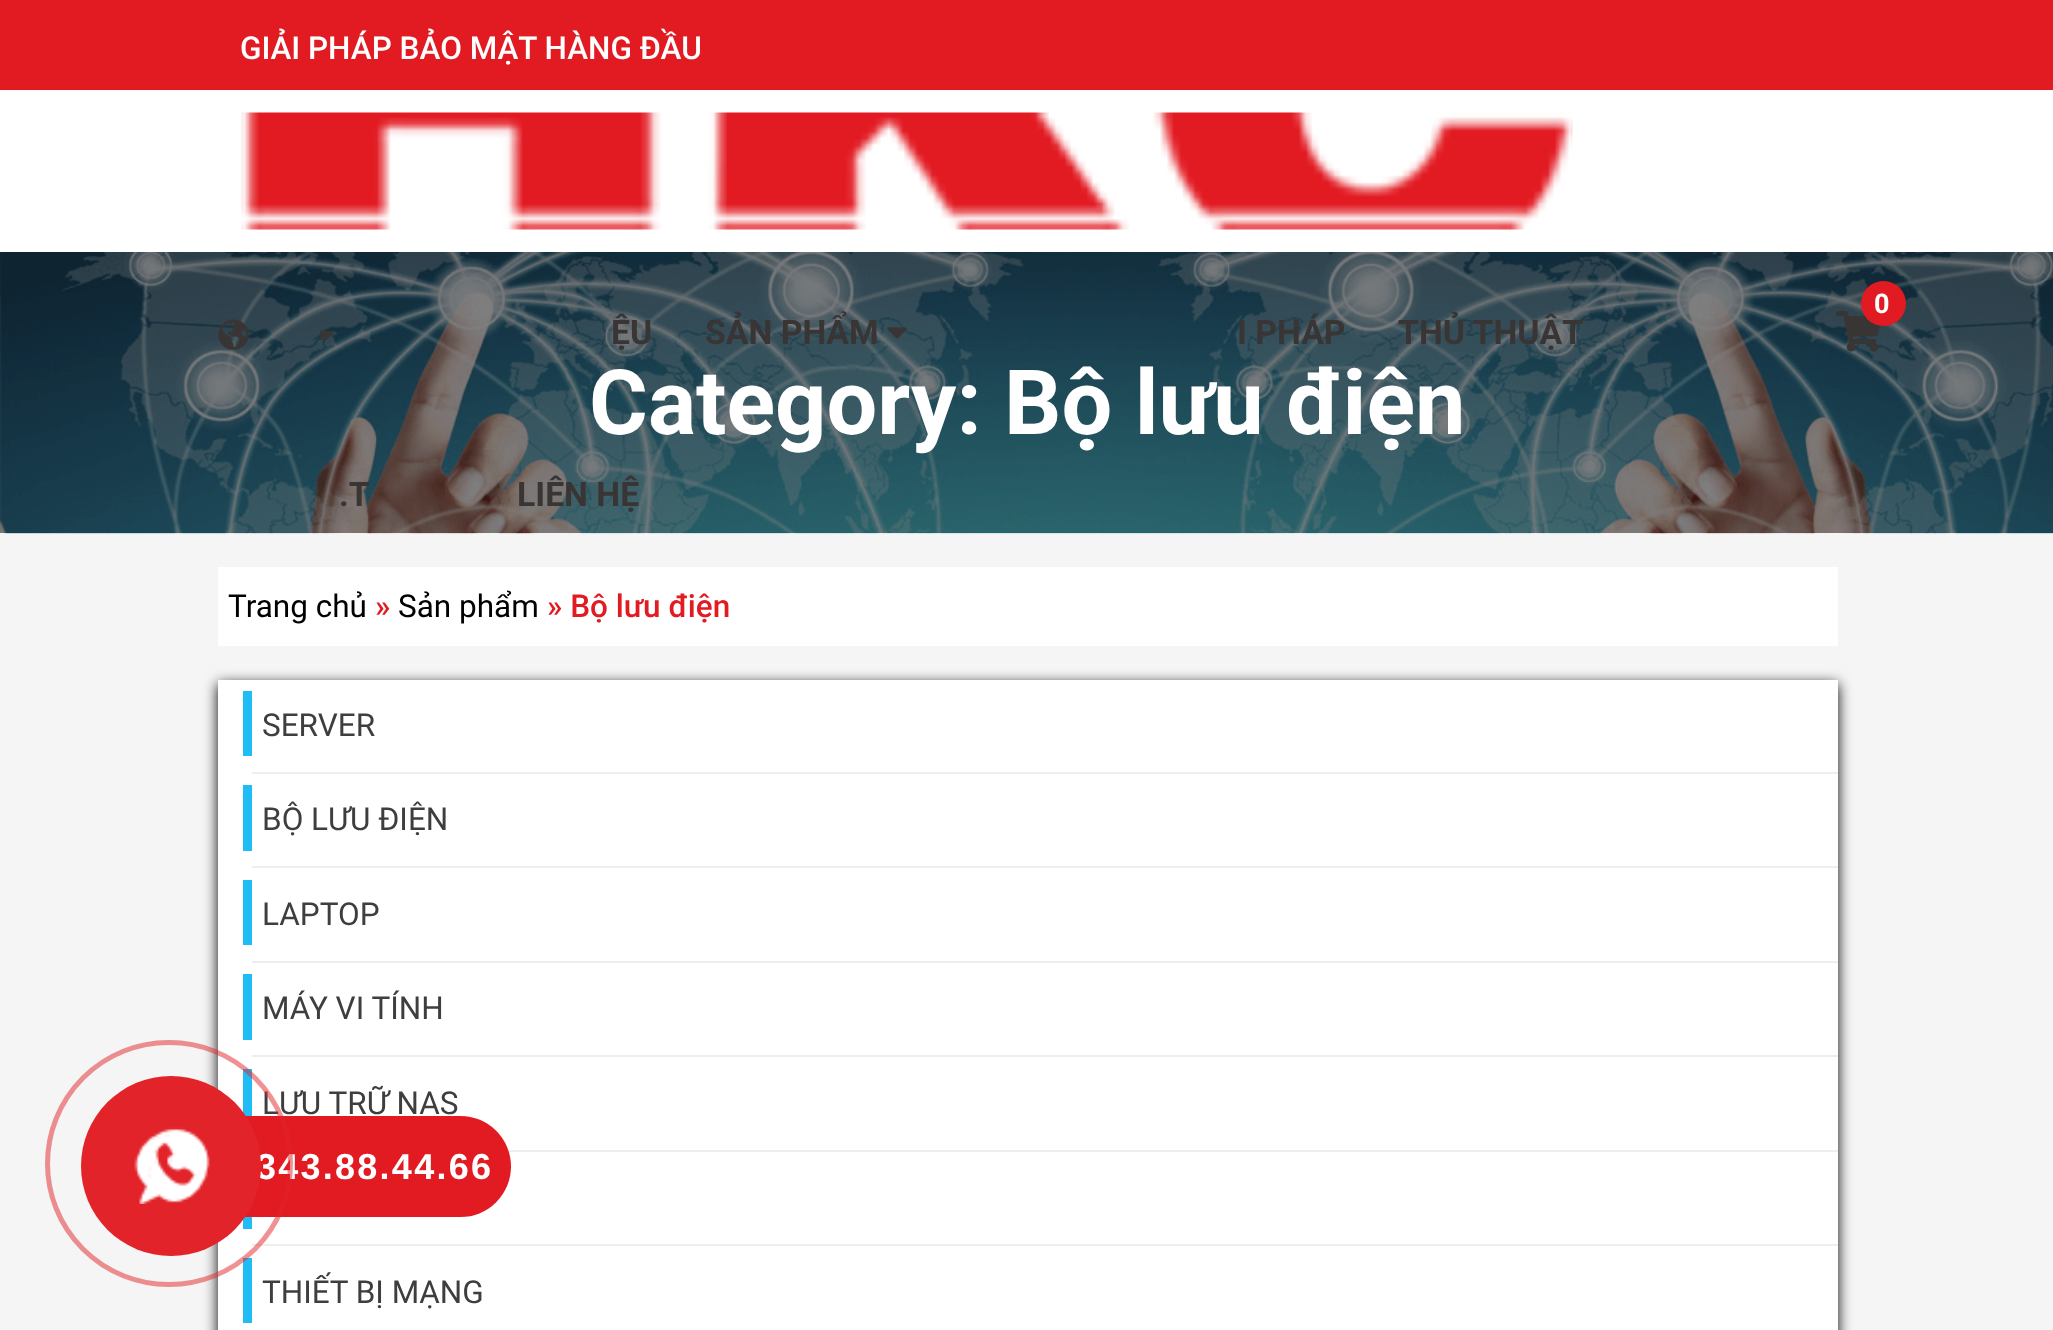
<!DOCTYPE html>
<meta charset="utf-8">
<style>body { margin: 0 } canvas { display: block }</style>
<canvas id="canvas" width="2053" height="1330"></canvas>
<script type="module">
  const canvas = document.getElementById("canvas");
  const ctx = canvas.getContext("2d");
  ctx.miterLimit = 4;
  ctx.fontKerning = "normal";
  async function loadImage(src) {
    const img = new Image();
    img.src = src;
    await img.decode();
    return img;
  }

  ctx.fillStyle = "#ffffff";
  ctx.fillRect(0, 0, 2053, 1330);
  ctx.fillStyle = "#e21a22";
  ctx.fillRect(0, 0, 2053, 90);
  ctx.font = "500 31.5px Roboto";
  ctx.fillStyle = "#ffffff";
  ctx.fillText("GIẢI PHÁP BẢO MẬT HÀNG ĐẦU", 240, 59);
  ctx.drawImage(await loadImage("img1.png"), 241, 112, 1332, 118);
  ctx.fillStyle = "#f5f5f5";
  ctx.fillRect(0, 533, 2053, 797);
  ctx.drawImage(await loadImage("img6.png"), 0, 252, 2053, 282);
  ctx.drawImage(await loadImage("img2.png"), 1836, 311, 44, 41);
  ctx.fillStyle = "#e21a22";
  ctx.beginPath();
  ctx.arc(1883.5, 303.5, 22.5, 0, Math.PI * 2);
  ctx.fill();
  ctx.font = "bold 27px Roboto";
  ctx.fillStyle = "#ffffff";
  ctx.fillText("0", 1874, 313);
  ctx.drawImage(await loadImage("img3.png"), 218, 319, 31, 31);
  ctx.drawImage(await loadImage("img4.png"), 320, 330, 14, 10);
  ctx.font = "bold 33.75px Roboto";
  ctx.fillStyle = "#393535";
  ctx.fillText("ỆU", 611, 344);
  ctx.fillText("SẢN PHẨM", 705, 344);
  ctx.drawImage(await loadImage("img5.png"), 887, 327, 20, 12);
  ctx.fillText("I PHÁP", 1237, 344);
  ctx.fillText("THỦ THUẬT", 1398, 344);
  ctx.fillText(".T", 339, 506);
  ctx.fillText("LIÊN HỆ", 517, 506);
  ctx.font = "bold 90px Roboto";
  ctx.fillStyle = "#ffffff";
  ctx.fillText("Category: Bộ lưu điện", 589, 434);
  ctx.fillRect(218, 567, 1620, 79);
  ctx.font = "31.5px Roboto";
  ctx.fillStyle = "#000000";
  ctx.fillText("Trang chủ", 228, 617);
  ctx.font = "500 31.5px Roboto";
  ctx.fillStyle = "#e21a22";
  ctx.fillText("»", 375, 617);
  ctx.font = "31.5px Roboto";
  ctx.fillStyle = "#000000";
  ctx.fillText("Sản phẩm", 398, 617);
  ctx.font = "500 31.5px Roboto";
  ctx.fillStyle = "#e21a22";
  ctx.fillText("» Bộ lưu điện", 547, 617);
  ctx.fillStyle = "#000000";
  ctx.filter = "blur(7px)";
  ctx.beginPath();
  ctx.rect(218, 684, 1620, 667);
  ctx.fill();
  ctx.filter = "none";
  ctx.fillStyle = "#ffffff";
  ctx.fillRect(218, 680, 1620, 650);
  ctx.fillStyle = "#eeeeee";
  ctx.fillRect(252, 772, 1586, 2);
  ctx.fillStyle = "#20bcf6";
  ctx.fillRect(243, 691, 9, 65);
  ctx.font = "31.5px Roboto";
  ctx.fillStyle = "#3e3e3e";
  ctx.fillText("SERVER", 262, 736);
  ctx.fillStyle = "#eeeeee";
  ctx.fillRect(252, 866, 1586, 2);
  ctx.fillStyle = "#20bcf6";
  ctx.fillRect(243, 785, 9, 66);
  ctx.fillStyle = "#3e3e3e";
  ctx.fillText("BỘ LƯU ĐIỆN", 262, 830);
  ctx.fillStyle = "#eeeeee";
  ctx.fillRect(252, 961, 1586, 2);
  ctx.fillStyle = "#20bcf6";
  ctx.fillRect(243, 880, 9, 65);
  ctx.fillStyle = "#3e3e3e";
  ctx.fillText("LAPTOP", 262, 925);
  ctx.fillStyle = "#eeeeee";
  ctx.fillRect(252, 1055, 1586, 2);
  ctx.fillStyle = "#20bcf6";
  ctx.fillRect(243, 974, 9, 66);
  ctx.fillStyle = "#3e3e3e";
  ctx.fillText("MÁY VI TÍNH", 262, 1019);
  ctx.fillStyle = "#eeeeee";
  ctx.fillRect(508, 1150, 1330, 2);
  ctx.fillStyle = "#20bcf6";
  ctx.fillRect(243, 1069, 9, 47);
  ctx.fillStyle = "#3e3e3e";
  ctx.fillText("LƯU TRỮ NAS", 262, 1114);
  ctx.fillStyle = "#eeeeee";
  ctx.fillRect(252, 1244, 1586, 2);
  ctx.fillStyle = "#20bcf6";
  ctx.fillRect(243, 1217, 9, 12);
  ctx.fillRect(243, 1258, 9, 65);
  ctx.fillStyle = "#3e3e3e";
  ctx.fillText("THIẾT BỊ MẠNG", 262, 1303);
  ctx.fillStyle = "#e21b23";
  ctx.beginPath();
  ctx.roundRect(140, 1116, 371, 101, 50.5);
  ctx.fill();
  ctx.letterSpacing = "2.25px";
  ctx.font = "bold 36px Liberation Sans";
  ctx.fillStyle = "#ffffff";
  ctx.fillText("343.88.44.66", 256, 1179);
  ctx.beginPath();
  ctx.roundRect(47.5, 1042.5, 243, 242, 121);
  ctx.strokeStyle = "rgba(226, 36, 42, 0.5)";
  ctx.lineWidth = 5;
  ctx.stroke();
  ctx.fillStyle = "#e2242a";
  ctx.beginPath();
  ctx.arc(171, 1166, 90, 0, Math.PI * 2);
  ctx.fill();
  ctx.drawImage(await loadImage("img7.png"), 134, 1127, 76, 77);
</script>
